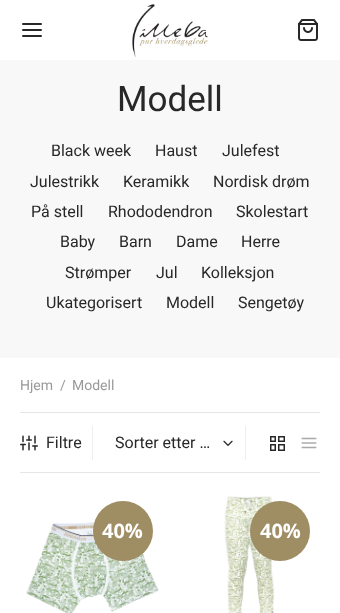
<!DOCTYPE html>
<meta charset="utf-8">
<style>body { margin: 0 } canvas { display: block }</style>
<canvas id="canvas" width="340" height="613"></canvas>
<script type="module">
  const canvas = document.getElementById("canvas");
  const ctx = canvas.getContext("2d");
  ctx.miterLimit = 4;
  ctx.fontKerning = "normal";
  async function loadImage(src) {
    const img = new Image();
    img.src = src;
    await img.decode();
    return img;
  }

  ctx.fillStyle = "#ffffff";
  ctx.fillRect(0, 0, 340, 613);
  ctx.beginPath();
  ctx.moveTo(23, 30);
  ctx.lineTo(41, 30);
  ctx.moveTo(23, 24);
  ctx.lineTo(41, 24);
  ctx.moveTo(23, 36);
  ctx.lineTo(41, 36);
  ctx.strokeStyle = "#282828";
  ctx.lineWidth = 2;
  ctx.lineCap = "round";
  ctx.lineJoin = "round";
  ctx.stroke();
  ctx.drawImage(await loadImage("img1.png"), 132, 4, 76, 53);
  ctx.drawImage(await loadImage("img2.png"), 298, 19, 20, 22);
  ctx.fillStyle = "#f8f8f8";
  ctx.fillRect(0, 60, 340, 298);
  ctx.font = "35px Roboto";
  ctx.fillStyle = "#282828";
  ctx.fillText("Modell", 117, 111);
  ctx.font = "16px Roboto";
  ctx.fillText("Black week", 51, 156);
  ctx.fillText("Haust", 155, 156);
  ctx.fillText("Julefest", 222, 156);
  ctx.fillText("Julestrikk", 30, 187);
  ctx.fillText("Keramikk", 123, 187);
  ctx.fillText("Nordisk drøm", 213, 187);
  ctx.fillText("På stell", 31, 217);
  ctx.fillText("Rhododendron", 108, 217);
  ctx.fillText("Skolestart", 236, 217);
  ctx.fillText("Baby", 60, 247);
  ctx.fillText("Barn", 119, 247);
  ctx.fillText("Dame", 176, 247);
  ctx.fillText("Herre", 241, 247);
  ctx.fillText("Strømper", 65, 278);
  ctx.fillText("Jul", 156, 278);
  ctx.fillText("Kolleksjon", 201, 278);
  ctx.fillText("Ukategorisert", 46, 308);
  ctx.fillText("Modell", 166, 308);
  ctx.fillText("Sengetøy", 238, 308);
  ctx.font = "14px Roboto";
  ctx.fillStyle = "#999999";
  ctx.fillText("Hjem", 20, 390);
  ctx.fillText("/", 60, 390);
  ctx.fillText("Modell", 72, 390);
  ctx.fillStyle = "#e6e6e6";
  ctx.fillRect(20, 412, 300, 1);
  ctx.fillRect(20, 472, 300, 1);
  ctx.fillStyle = "#eeeeee";
  ctx.fillRect(92, 426, 1, 34);
  ctx.drawImage(await loadImage("img3.png"), 20, 435, 18, 16);
  ctx.font = "16px Roboto";
  ctx.fillStyle = "#282828";
  ctx.fillText("Filtre", 46, 448);
  ctx.fillText("Sorter etter …", 115, 448);
  ctx.drawImage(await loadImage("img4.png"), 223, 440, 10, 6);
  ctx.fillStyle = "#eeeeee";
  ctx.fillRect(245, 426, 1, 34);
  ctx.drawImage(await loadImage("img5.png"), 270, 436, 15, 15);
  ctx.drawImage(await loadImage("img6.png"), 301, 437, 16, 12);
  ctx.drawImage(await loadImage("img7.png"), 26, 520, 133, 93);
  ctx.fillStyle = "#9f8d64";
  ctx.beginPath();
  ctx.arc(123, 531, 30, 0, Math.PI * 2);
  ctx.fill();
  ctx.font = "bold 20px Open Sans";
  ctx.fillStyle = "#ffffff";
  ctx.fillText("40%", 102, 538);
  ctx.drawImage(await loadImage("img8.png"), 224, 496, 51, 117);
  ctx.fillStyle = "#9f8d64";
  ctx.beginPath();
  ctx.arc(280, 531, 30, 0, Math.PI * 2);
  ctx.fill();
  ctx.fillStyle = "#ffffff";
  ctx.fillText("40%", 260, 538);
</script>
